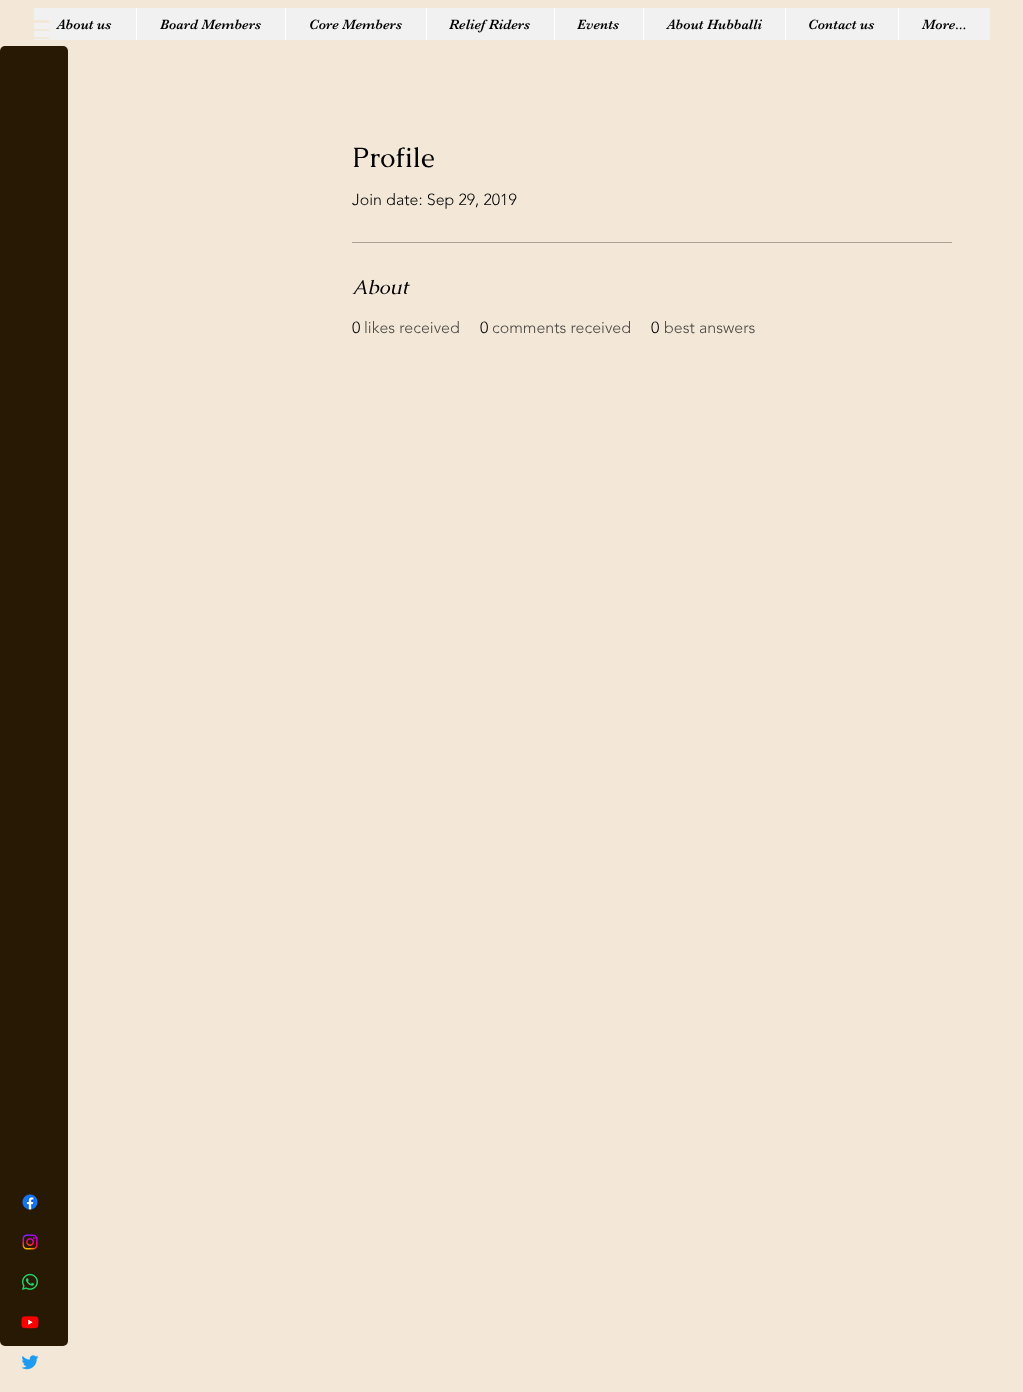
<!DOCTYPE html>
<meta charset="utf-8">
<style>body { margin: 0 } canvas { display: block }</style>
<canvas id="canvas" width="1023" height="1392"></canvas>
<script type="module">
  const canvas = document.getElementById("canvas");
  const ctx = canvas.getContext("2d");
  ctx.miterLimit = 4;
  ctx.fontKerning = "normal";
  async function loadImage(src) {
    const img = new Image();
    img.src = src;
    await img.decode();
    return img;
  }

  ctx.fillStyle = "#f3e8d8";
  ctx.fillRect(0, 0, 1023, 1392);
  ctx.fillStyle = "#f1f1f1";
  ctx.fillRect(34, 8, 956, 32);
  ctx.fillStyle = "#f3e8d8";
  ctx.fillRect(34, 37, 15, 2);
  ctx.fillRect(34, 20, 15, 3);
  ctx.fillRect(34, 29, 15, 2);
  ctx.font = "14px 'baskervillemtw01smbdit'";
  ctx.fillStyle = "#000000";
  ctx.fillText("About us", 57, 29);
  ctx.fillStyle = "#ffffff";
  ctx.fillRect(136, 8, 1, 32);
  ctx.fillStyle = "#000000";
  ctx.fillText("Board Members", 160, 29);
  ctx.fillStyle = "#ffffff";
  ctx.fillRect(285, 8, 1, 32);
  ctx.fillStyle = "#000000";
  ctx.fillText("Core Members", 309, 29);
  ctx.fillStyle = "#ffffff";
  ctx.fillRect(426, 8, 1, 32);
  ctx.fillStyle = "#000000";
  ctx.fillText("Relief Riders", 449, 29);
  ctx.fillStyle = "#ffffff";
  ctx.fillRect(554, 8, 1, 32);
  ctx.fillStyle = "#000000";
  ctx.fillText("Events", 577, 29);
  ctx.fillStyle = "#ffffff";
  ctx.fillRect(643, 8, 1, 32);
  ctx.fillStyle = "#000000";
  ctx.fillText("About Hubballi", 667, 29);
  ctx.fillStyle = "#ffffff";
  ctx.fillRect(785, 8, 1, 32);
  ctx.fillStyle = "#000000";
  ctx.fillText("Contact us", 808, 29);
  ctx.fillStyle = "#ffffff";
  ctx.fillRect(898, 8, 1, 32);
  ctx.fillStyle = "#000000";
  ctx.fillText("More...", 922, 29);
  ctx.fillStyle = "#271904";
  ctx.beginPath();
  ctx.roundRect(0, 46, 68, 1300, 5);
  ctx.fill();
  ctx.font = "28px Caudex";
  ctx.fillStyle = "#000000";
  ctx.fillText("Profile", 352, 167);
  ctx.font = "300 16px 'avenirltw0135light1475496'";
  ctx.fillText("Join date: Sep 29, 2019", 352, 205);
  ctx.fillStyle = "#aaa297";
  ctx.fillRect(352, 242, 600, 1);
  ctx.font = "italic 20px Caudex";
  ctx.fillStyle = "#000000";
  ctx.fillText("About", 352, 294);
  ctx.font = "300 16px 'avenirltw0135light1475496'";
  ctx.fillText("0", 352, 333);
  ctx.fillStyle = "#494641";
  ctx.fillText("likes received", 364, 333);
  ctx.fillStyle = "#000000";
  ctx.fillText("0", 480, 333);
  ctx.fillStyle = "#494641";
  ctx.fillText("comments received", 492, 333);
  ctx.fillStyle = "#000000";
  ctx.fillText("0", 651, 333);
  ctx.fillStyle = "#494641";
  ctx.fillText("best answers", 664, 333);
  ctx.drawImage(await loadImage("img1.png"), 22, 1194, 16, 16);
  ctx.drawImage(await loadImage("img2.png"), 22, 1234, 16, 16);
  ctx.drawImage(await loadImage("img3.png"), 21, 1273, 17, 17);
  ctx.drawImage(await loadImage("img4.png"), 21, 1316, 18, 13);
  ctx.drawImage(await loadImage("img5.png"), 21, 1355, 18, 15);
</script>
